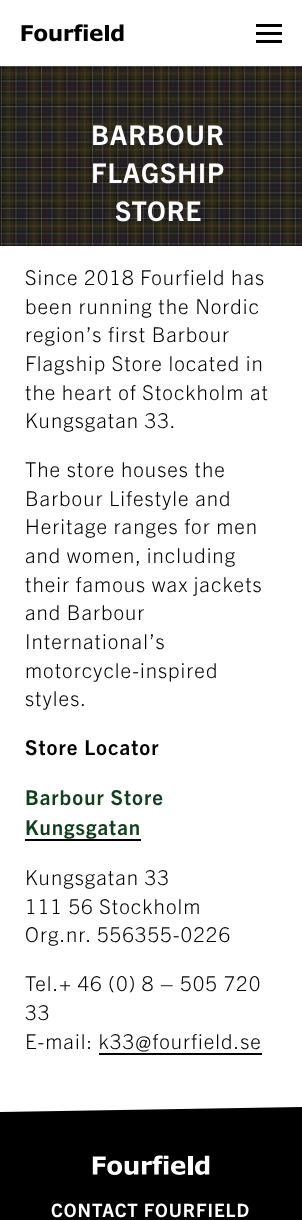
<!DOCTYPE html>
<meta charset="utf-8">
<style>body { margin: 0 } canvas { display: block }</style>
<canvas id="canvas" width="302" height="1220"></canvas>
<script type="module">
  const canvas = document.getElementById("canvas");
  const ctx = canvas.getContext("2d");
  ctx.miterLimit = 4;
  ctx.fontKerning = "normal";
  async function loadImage(src) {
    const img = new Image();
    img.src = src;
    await img.decode();
    return img;
  }

  ctx.fillStyle = "#ffffff";
  ctx.fillRect(0, 0, 302, 1220);
  ctx.drawImage(await loadImage("img1.png"), 21, 24, 103, 18);
  ctx.fillStyle = "#000000";
  ctx.fillRect(256, 32, 26, 3);
  ctx.fillRect(256, 24, 26, 3);
  ctx.fillRect(256, 40, 26, 3);
  ctx.drawImage(await loadImage("img2.png"), 0, 66, 302, 180);
  ctx.letterSpacing = "1px";
  ctx.font = "bold 27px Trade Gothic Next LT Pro";
  ctx.fillStyle = "#ffffff";
  ctx.fillText("BARBOUR", 91, 145);
  ctx.fillText("FLAGSHIP", 91, 183);
  ctx.fillText("STORE", 115, 221);
  ctx.font = "300 20.5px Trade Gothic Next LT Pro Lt";
  ctx.fillStyle = "#000000";
  ctx.fillText("Since 2018 Fourfield has", 25, 285);
  ctx.fillText("been running the Nordic", 25, 314);
  ctx.fillText("region’s first Barbour", 25, 342);
  ctx.fillText("Flagship Store located in", 25, 371);
  ctx.fillText("the heart of Stockholm at", 25, 400);
  ctx.fillText("Kungsgatan 33.", 25, 428);
  ctx.fillText("The store houses the", 25, 477);
  ctx.fillText("Barbour Lifestyle and", 25, 506);
  ctx.fillText("Heritage ranges for men", 25, 534);
  ctx.fillText("and women, including", 25, 563);
  ctx.fillText("their famous wax jackets", 25, 592);
  ctx.fillText("and Barbour", 25, 620);
  ctx.fillText("International’s", 25, 649);
  ctx.fillText("motorcycle-inspired", 25, 678);
  ctx.fillText("styles.", 25, 706);
  ctx.font = "bold 20.5px Trade Gothic Next LT Pro";
  ctx.fillText("Store Locator", 25, 755);
  ctx.fillStyle = "#113e1d";
  ctx.fillText("Barbour Store", 25, 805);
  ctx.fillText("Kungsgatan", 25, 835);
  ctx.fillStyle = "#000000";
  ctx.fillRect(25, 839, 116, 2);
  ctx.font = "300 20.5px Trade Gothic Next LT Pro Lt";
  ctx.fillText("Kungsgatan 33", 25, 885);
  ctx.fillText("111 56 Stockholm", 25, 914);
  ctx.fillText("Org.nr. 556355-0226", 25, 942);
  ctx.fillText("Tel.+ 46 (0) 8 – 505 720", 25, 991);
  ctx.fillText("33", 25, 1020);
  ctx.fillText("E-mail: k33@fourfield.se", 25, 1049);
  ctx.fillRect(99, 1053, 163, 2);
  ctx.beginPath();
  ctx.moveTo(0, 1112);
  ctx.lineTo(0, 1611);
  ctx.lineTo(302, 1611);
  ctx.lineTo(302, 1107);
  ctx.closePath();
  ctx.fill();
  ctx.drawImage(await loadImage("img3.png"), 92, 1155, 118, 20);
  ctx.font = "bold 18.4px Trade Gothic Next LT Pro";
  ctx.fillStyle = "#ffffff";
  ctx.fillText("CONTACT FOURFIELD", 51, 1217);
</script>
